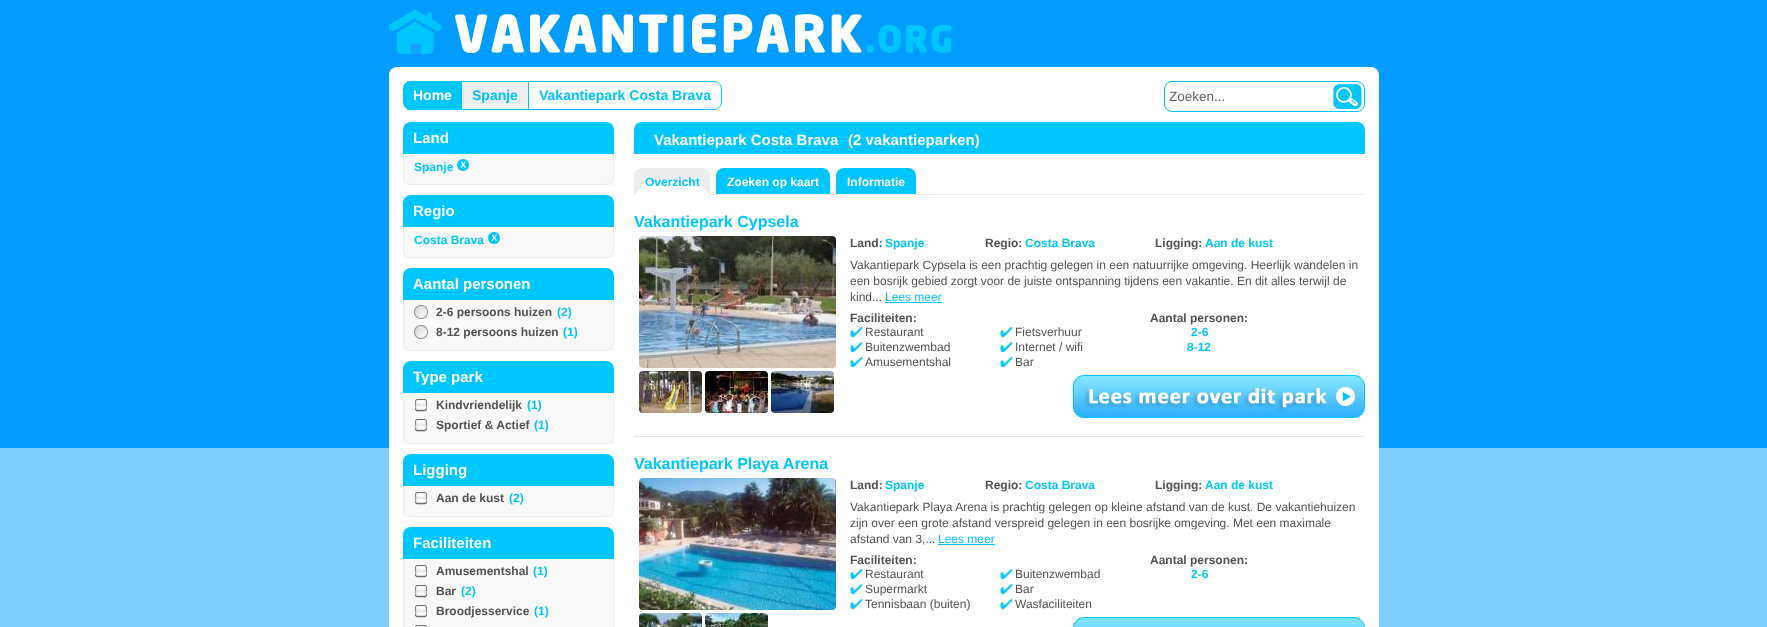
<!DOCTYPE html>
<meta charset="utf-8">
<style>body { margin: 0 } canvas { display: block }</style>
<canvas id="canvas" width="1767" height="627"></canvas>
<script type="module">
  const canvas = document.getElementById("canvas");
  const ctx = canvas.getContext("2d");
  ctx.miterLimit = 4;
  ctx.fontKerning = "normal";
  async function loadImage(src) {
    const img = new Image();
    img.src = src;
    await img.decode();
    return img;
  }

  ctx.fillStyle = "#7cd0ff";
  ctx.fillRect(0, 0, 1767, 627);
  ctx.fillStyle = "#009cff";
  ctx.fillRect(0, 0, 1767, 448);
  ctx.drawImage(await loadImage("img1.png"), 389, 10, 563, 44);
  ctx.fillStyle = "#ffffff";
  ctx.beginPath();
  ctx.roundRect(389, 67, 990, 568, 8);
  ctx.fill();
  ctx.fillStyle = "#00c6ff";
  ctx.beginPath();
  ctx.roundRect(403, 81, 59, 29, [8, 0, 0, 8]);
  ctx.fill();
  ctx.fillRect(407, 81, 4, 1);
  ctx.fillRect(407, 109, 4, 1);
  ctx.font = "bold 14px Liberation Sans";
  ctx.fillStyle = "#ffffff";
  ctx.fillText("Home", 413, 100);
  ctx.fillStyle = "#eeeeee";
  ctx.fillRect(462, 82, 66, 27);
  ctx.fillStyle = "#00c6ff";
  ctx.fillRect(462, 81, 67, 1);
  ctx.fillRect(528, 81, 1, 29);
  ctx.fillRect(462, 109, 67, 1);
  ctx.fillText("Spanje", 472, 100);
  ctx.beginPath();
  ctx.moveTo(529, 81);
  ctx.lineTo(714, 81);
  ctx.bezierCurveTo(718, 81, 722, 85, 722, 89);
  ctx.lineTo(722, 102);
  ctx.bezierCurveTo(722, 106, 718, 110, 714, 110);
  ctx.lineTo(529, 110);
  ctx.closePath();
  ctx.moveTo(529, 82);
  ctx.lineTo(714, 82);
  ctx.bezierCurveTo(718, 82, 721, 85, 721, 89);
  ctx.lineTo(721, 102);
  ctx.bezierCurveTo(721, 106, 718, 109, 714, 109);
  ctx.lineTo(529, 109);
  ctx.closePath();
  ctx.fill("evenodd");
  ctx.fillText("Vakantiepark Costa Brava", 539, 100);
  ctx.beginPath();
  ctx.roundRect(1164.5, 81.5, 200, 30, 7.5);
  ctx.strokeStyle = "#00c6ff";
  ctx.stroke();
  ctx.font = "13.5px Liberation Sans";
  ctx.fillStyle = "#666666";
  ctx.fillText("Zoeken...", 1169, 101);
  ctx.drawImage(await loadImage("img2.png"), 1333, 84, 29, 25);
  ctx.fillStyle = "#f9f9f9";
  ctx.fillRect(403, 122, 211, 63);
  ctx.fillStyle = "#00c6ff";
  ctx.beginPath();
  ctx.roundRect(403, 122, 211, 32, [8, 8, 0, 0]);
  ctx.fill();
  ctx.font = "bold 15px Liberation Sans";
  ctx.fillStyle = "#ffffff";
  ctx.fillText("Land", 413, 143);
  ctx.fillStyle = "#ededed";
  ctx.beginPath();
  ctx.moveTo(403, 154);
  ctx.lineTo(614, 154);
  ctx.lineTo(614, 177);
  ctx.bezierCurveTo(614, 181, 610, 185, 606, 185);
  ctx.lineTo(411, 185);
  ctx.bezierCurveTo(407, 185, 403, 181, 403, 177);
  ctx.closePath();
  ctx.moveTo(404, 154);
  ctx.lineTo(613, 154);
  ctx.lineTo(613, 177);
  ctx.bezierCurveTo(613, 181, 610, 184, 606, 184);
  ctx.lineTo(411, 184);
  ctx.bezierCurveTo(407, 184, 404, 181, 404, 177);
  ctx.closePath();
  ctx.fill("evenodd");
  ctx.font = "bold 12px Liberation Sans";
  ctx.fillStyle = "#00c6ff";
  ctx.fillText("Spanje", 414, 171);
  ctx.drawImage(await loadImage("img3.png"), 457, 159, 12, 12);
  ctx.fillStyle = "#f9f9f9";
  ctx.fillRect(403, 195, 211, 63);
  ctx.fillStyle = "#00c6ff";
  ctx.beginPath();
  ctx.roundRect(403, 195, 211, 32, [8, 8, 0, 0]);
  ctx.fill();
  ctx.font = "bold 15px Liberation Sans";
  ctx.fillStyle = "#ffffff";
  ctx.fillText("Regio", 413, 216);
  ctx.fillStyle = "#ededed";
  ctx.beginPath();
  ctx.moveTo(403, 227);
  ctx.lineTo(614, 227);
  ctx.lineTo(614, 250);
  ctx.bezierCurveTo(614, 254, 610, 258, 606, 258);
  ctx.lineTo(411, 258);
  ctx.bezierCurveTo(407, 258, 403, 254, 403, 250);
  ctx.closePath();
  ctx.moveTo(404, 227);
  ctx.lineTo(613, 227);
  ctx.lineTo(613, 250);
  ctx.bezierCurveTo(613, 254, 610, 257, 606, 257);
  ctx.lineTo(411, 257);
  ctx.bezierCurveTo(407, 257, 404, 254, 404, 250);
  ctx.closePath();
  ctx.fill("evenodd");
  ctx.font = "bold 12px Liberation Sans";
  ctx.fillStyle = "#00c6ff";
  ctx.fillText("Costa Brava", 414, 244);
  ctx.drawImage(await loadImage("img3.png"), 488, 232, 12, 12);
  ctx.fillStyle = "#f9f9f9";
  ctx.fillRect(403, 268, 211, 83);
  ctx.fillStyle = "#00c6ff";
  ctx.beginPath();
  ctx.roundRect(403, 268, 211, 32, [8, 8, 0, 0]);
  ctx.fill();
  ctx.font = "bold 15px Liberation Sans";
  ctx.fillStyle = "#ffffff";
  ctx.fillText("Aantal personen", 413, 289);
  ctx.fillStyle = "#ededed";
  ctx.beginPath();
  ctx.moveTo(403, 300);
  ctx.lineTo(614, 300);
  ctx.lineTo(614, 343);
  ctx.bezierCurveTo(614, 347, 610, 351, 606, 351);
  ctx.lineTo(411, 351);
  ctx.bezierCurveTo(407, 351, 403, 347, 403, 343);
  ctx.closePath();
  ctx.moveTo(404, 300);
  ctx.lineTo(613, 300);
  ctx.lineTo(613, 343);
  ctx.bezierCurveTo(613, 347, 610, 350, 606, 350);
  ctx.lineTo(411, 350);
  ctx.bezierCurveTo(407, 350, 404, 347, 404, 343);
  ctx.closePath();
  ctx.fill("evenodd");
  ctx.drawImage(await loadImage("img4.png"), 414, 305, 14, 14);
  ctx.font = "bold 12px Liberation Sans";
  ctx.fillStyle = "#535353";
  ctx.fillText("2-6 persoons huizen", 436, 316);
  ctx.fillStyle = "#00c6ff";
  ctx.fillText("(2)", 557, 316);
  ctx.drawImage(await loadImage("img4.png"), 414, 325, 14, 14);
  ctx.fillStyle = "#535353";
  ctx.fillText("8-12 persoons huizen", 436, 336);
  ctx.fillStyle = "#00c6ff";
  ctx.fillText("(1)", 563, 336);
  ctx.fillStyle = "#f9f9f9";
  ctx.fillRect(403, 361, 211, 83);
  ctx.fillStyle = "#00c6ff";
  ctx.beginPath();
  ctx.roundRect(403, 361, 211, 32, [8, 8, 0, 0]);
  ctx.fill();
  ctx.font = "bold 15px Liberation Sans";
  ctx.fillStyle = "#ffffff";
  ctx.fillText("Type park", 413, 382);
  ctx.fillStyle = "#ededed";
  ctx.beginPath();
  ctx.moveTo(403, 393);
  ctx.lineTo(614, 393);
  ctx.lineTo(614, 436);
  ctx.bezierCurveTo(614, 440, 610, 444, 606, 444);
  ctx.lineTo(411, 444);
  ctx.bezierCurveTo(407, 444, 403, 440, 403, 436);
  ctx.closePath();
  ctx.moveTo(404, 393);
  ctx.lineTo(613, 393);
  ctx.lineTo(613, 436);
  ctx.bezierCurveTo(613, 440, 610, 443, 606, 443);
  ctx.lineTo(411, 443);
  ctx.bezierCurveTo(407, 443, 404, 440, 404, 436);
  ctx.closePath();
  ctx.fill("evenodd");
  ctx.drawImage(await loadImage("img5.png"), 414, 399, 18, 13);
  ctx.font = "bold 12px Liberation Sans";
  ctx.fillStyle = "#535353";
  ctx.fillText("Kindvriendelijk", 436, 409);
  ctx.fillStyle = "#00c6ff";
  ctx.fillText("(1)", 527, 409);
  ctx.drawImage(await loadImage("img5.png"), 414, 419, 18, 13);
  ctx.fillStyle = "#535353";
  ctx.fillText("Sportief & Actief", 436, 429);
  ctx.fillStyle = "#00c6ff";
  ctx.fillText("(1)", 534, 429);
  ctx.fillStyle = "#f9f9f9";
  ctx.fillRect(403, 454, 211, 63);
  ctx.fillStyle = "#00c6ff";
  ctx.beginPath();
  ctx.roundRect(403, 454, 211, 32, [8, 8, 0, 0]);
  ctx.fill();
  ctx.font = "bold 15px Liberation Sans";
  ctx.fillStyle = "#ffffff";
  ctx.fillText("Ligging", 413, 475);
  ctx.fillStyle = "#ededed";
  ctx.beginPath();
  ctx.moveTo(403, 486);
  ctx.lineTo(614, 486);
  ctx.lineTo(614, 509);
  ctx.bezierCurveTo(614, 513, 610, 517, 606, 517);
  ctx.lineTo(411, 517);
  ctx.bezierCurveTo(407, 517, 403, 513, 403, 509);
  ctx.closePath();
  ctx.moveTo(404, 486);
  ctx.lineTo(613, 486);
  ctx.lineTo(613, 509);
  ctx.bezierCurveTo(613, 513, 610, 516, 606, 516);
  ctx.lineTo(411, 516);
  ctx.bezierCurveTo(407, 516, 404, 513, 404, 509);
  ctx.closePath();
  ctx.fill("evenodd");
  ctx.drawImage(await loadImage("img5.png"), 414, 492, 18, 13);
  ctx.font = "bold 12px Liberation Sans";
  ctx.fillStyle = "#535353";
  ctx.fillText("Aan de kust", 436, 502);
  ctx.fillStyle = "#00c6ff";
  ctx.fillText("(2)", 509, 502);
  ctx.fillStyle = "#f9f9f9";
  ctx.fillRect(403, 527, 211, 100);
  ctx.fillStyle = "#00c6ff";
  ctx.beginPath();
  ctx.roundRect(403, 527, 211, 32, [8, 8, 0, 0]);
  ctx.fill();
  ctx.font = "bold 15px Liberation Sans";
  ctx.fillStyle = "#ffffff";
  ctx.fillText("Faciliteiten", 413, 548);
  ctx.fillStyle = "#ededed";
  ctx.beginPath();
  ctx.moveTo(403, 559);
  ctx.lineTo(614, 559);
  ctx.lineTo(614, 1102);
  ctx.bezierCurveTo(614, 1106, 610, 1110, 606, 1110);
  ctx.lineTo(411, 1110);
  ctx.bezierCurveTo(407, 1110, 403, 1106, 403, 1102);
  ctx.closePath();
  ctx.moveTo(404, 559);
  ctx.lineTo(613, 559);
  ctx.lineTo(613, 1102);
  ctx.bezierCurveTo(613, 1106, 610, 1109, 606, 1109);
  ctx.lineTo(411, 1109);
  ctx.bezierCurveTo(407, 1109, 404, 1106, 404, 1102);
  ctx.closePath();
  ctx.fill("evenodd");
  ctx.drawImage(await loadImage("img5.png"), 414, 565, 18, 13);
  ctx.font = "bold 12px Liberation Sans";
  ctx.fillStyle = "#535353";
  ctx.fillText("Amusementshal", 436, 575);
  ctx.fillStyle = "#00c6ff";
  ctx.fillText("(1)", 533, 575);
  ctx.drawImage(await loadImage("img5.png"), 414, 585, 18, 13);
  ctx.fillStyle = "#535353";
  ctx.fillText("Bar", 436, 595);
  ctx.fillStyle = "#00c6ff";
  ctx.fillText("(2)", 461, 595);
  ctx.drawImage(await loadImage("img5.png"), 414, 605, 18, 13);
  ctx.fillStyle = "#535353";
  ctx.fillText("Broodjesservice", 436, 615);
  ctx.fillStyle = "#00c6ff";
  ctx.fillText("(1)", 534, 615);
  ctx.drawImage(await loadImage("img6.png"), 414, 625, 18, 2);
  ctx.fillStyle = "#f9f9f9";
  ctx.fillRect(634, 122, 731, 8);
  ctx.fillStyle = "#00c6ff";
  ctx.beginPath();
  ctx.roundRect(634, 122, 731, 32, [8, 8, 0, 0]);
  ctx.fill();
  ctx.font = "bold 15px Liberation Sans";
  ctx.fillStyle = "#ffffff";
  ctx.fillText("Vakantiepark Costa Brava", 654, 145);
  ctx.fillText("(2 vakantieparken)", 848, 145);
  ctx.fillStyle = "#ededed";
  ctx.fillRect(634, 194, 731, 1);
  ctx.beginPath();
  ctx.moveTo(642, 168);
  ctx.lineTo(702, 168);
  ctx.bezierCurveTo(704, 168, 706, 169, 708, 170);
  ctx.lineTo(696, 182);
  ctx.lineTo(648, 182);
  ctx.lineTo(636, 170);
  ctx.bezierCurveTo(638, 169, 640, 168, 642, 168);
  ctx.closePath();
  ctx.fill();
  ctx.beginPath();
  ctx.moveTo(707.5, 170.5);
  ctx.lineTo(696.5, 181.5);
  ctx.lineTo(710, 195);
  ctx.lineTo(710, 176);
  ctx.bezierCurveTo(710, 174, 709, 172, 707.5, 170.5);
  ctx.closePath();
  ctx.fill();
  ctx.fillStyle = "#ffffff";
  ctx.beginPath();
  ctx.moveTo(710, 195);
  ctx.lineTo(696, 182);
  ctx.lineTo(648, 182);
  ctx.lineTo(634, 195);
  ctx.closePath();
  ctx.fill();
  ctx.fillStyle = "#ededed";
  ctx.beginPath();
  ctx.moveTo(634, 195);
  ctx.lineTo(634, 176);
  ctx.bezierCurveTo(634, 174, 635, 172, 636.5, 170.5);
  ctx.lineTo(647.5, 181.5);
  ctx.closePath();
  ctx.fill();
  ctx.font = "bold 12px Liberation Sans";
  ctx.fillStyle = "#00c6ff";
  ctx.fillText("Overzicht", 645, 186);
  ctx.beginPath();
  ctx.roundRect(716, 168, 114, 26, [8, 8, 0, 0]);
  ctx.fill();
  ctx.fillStyle = "#ffffff";
  ctx.fillText("Zoeken op kaart", 727, 186);
  ctx.fillStyle = "#00c6ff";
  ctx.beginPath();
  ctx.roundRect(836, 168, 80, 26, [8, 8, 0, 0]);
  ctx.fill();
  ctx.fillStyle = "#ffffff";
  ctx.fillText("Informatie", 847, 186);
  ctx.fillStyle = "#e7e6e6";
  ctx.fillRect(634, 436, 731, 1);
  ctx.font = "bold 16px Liberation Sans";
  ctx.fillStyle = "#00c6ff";
  ctx.fillText("Vakantiepark Cypsela", 634, 227);
  ctx.drawImage(await loadImage("img7.png"), 639, 236, 197, 132);
  ctx.drawImage(await loadImage("img8.png"), 639, 371, 63, 42);
  ctx.drawImage(await loadImage("img9.png"), 705, 371, 63, 42);
  ctx.drawImage(await loadImage("img10.png"), 771, 371, 63, 42);
  ctx.font = "bold 12px Liberation Sans";
  ctx.fillStyle = "#535353";
  ctx.fillText("Land:", 850, 247);
  ctx.fillStyle = "#00c6ff";
  ctx.fillText("Spanje", 885, 247);
  ctx.fillStyle = "#535353";
  ctx.fillText("Regio:", 985, 247);
  ctx.fillStyle = "#00c6ff";
  ctx.fillText("Costa Brava", 1025, 247);
  ctx.fillStyle = "#535353";
  ctx.fillText("Ligging:", 1155, 247);
  ctx.fillStyle = "#00c6ff";
  ctx.fillText("Aan de kust", 1205, 247);
  ctx.font = "12px Liberation Sans";
  ctx.fillStyle = "#535353";
  ctx.fillText("Vakantiepark Cypsela is een prachtig gelegen in een natuurrijke omgeving. Heerlijk wandelen in", 850, 269);
  ctx.fillText("een bosrijk gebied zorgt voor de juiste ontspanning tijdens een vakantie. En dit alles terwijl de", 850, 285);
  ctx.fillText("kind...", 850, 301);
  ctx.fillStyle = "#00c6ff";
  ctx.fillText("Lees meer", 885, 301);
  ctx.fillRect(885, 302, 57, 1);
  ctx.font = "bold 12px Liberation Sans";
  ctx.fillStyle = "#535353";
  ctx.fillText("Faciliteiten:", 850, 322);
  ctx.drawImage(await loadImage("img11.png"), 850, 327, 13, 11);
  ctx.font = "12px Liberation Sans";
  ctx.fillText("Restaurant", 865, 336);
  ctx.drawImage(await loadImage("img11.png"), 1000, 327, 13, 11);
  ctx.fillText("Fietsverhuur", 1015, 336);
  ctx.drawImage(await loadImage("img11.png"), 850, 342, 13, 11);
  ctx.fillText("Buitenzwembad", 865, 351);
  ctx.drawImage(await loadImage("img11.png"), 1000, 342, 13, 11);
  ctx.fillText("Internet / wifi", 1015, 351);
  ctx.drawImage(await loadImage("img11.png"), 850, 357, 13, 11);
  ctx.fillText("Amusementshal", 865, 366);
  ctx.drawImage(await loadImage("img11.png"), 1000, 357, 13, 11);
  ctx.fillText("Bar", 1015, 366);
  ctx.font = "bold 12px Liberation Sans";
  ctx.fillText("Aantal personen:", 1150, 322);
  ctx.fillStyle = "#00c6ff";
  ctx.fillText("2-6", 1191, 336);
  ctx.fillText("8-12", 1187, 351);
  ctx.drawImage(await loadImage("img12.png"), 1073, 375, 292, 43);
  ctx.font = "bold 16px Liberation Sans";
  ctx.fillText("Vakantiepark Playa Arena", 634, 469);
  ctx.drawImage(await loadImage("img13.png"), 639, 478, 197, 132);
  ctx.drawImage(await loadImage("img14.png"), 639, 613, 63, 14);
  ctx.drawImage(await loadImage("img15.png"), 705, 613, 63, 14);
  ctx.font = "bold 12px Liberation Sans";
  ctx.fillStyle = "#535353";
  ctx.fillText("Land:", 850, 489);
  ctx.fillStyle = "#00c6ff";
  ctx.fillText("Spanje", 885, 489);
  ctx.fillStyle = "#535353";
  ctx.fillText("Regio:", 985, 489);
  ctx.fillStyle = "#00c6ff";
  ctx.fillText("Costa Brava", 1025, 489);
  ctx.fillStyle = "#535353";
  ctx.fillText("Ligging:", 1155, 489);
  ctx.fillStyle = "#00c6ff";
  ctx.fillText("Aan de kust", 1205, 489);
  ctx.font = "12px Liberation Sans";
  ctx.fillStyle = "#535353";
  ctx.fillText("Vakantiepark Playa Arena is prachtig gelegen op kleine afstand van de kust. De vakantiehuizen", 850, 511);
  ctx.fillText("zijn over een grote afstand verspreid gelegen in een bosrijke omgeving. Met een maximale", 850, 527);
  ctx.fillText("afstand van 3,...", 850, 543);
  ctx.fillStyle = "#00c6ff";
  ctx.fillText("Lees meer", 938, 543);
  ctx.fillRect(938, 544, 57, 1);
  ctx.font = "bold 12px Liberation Sans";
  ctx.fillStyle = "#535353";
  ctx.fillText("Faciliteiten:", 850, 564);
  ctx.drawImage(await loadImage("img11.png"), 850, 569, 13, 11);
  ctx.font = "12px Liberation Sans";
  ctx.fillText("Restaurant", 865, 578);
  ctx.drawImage(await loadImage("img11.png"), 1000, 569, 13, 11);
  ctx.fillText("Buitenzwembad", 1015, 578);
  ctx.drawImage(await loadImage("img11.png"), 850, 584, 13, 11);
  ctx.fillText("Supermarkt", 865, 593);
  ctx.drawImage(await loadImage("img11.png"), 1000, 584, 13, 11);
  ctx.fillText("Bar", 1015, 593);
  ctx.drawImage(await loadImage("img11.png"), 850, 599, 13, 11);
  ctx.fillText("Tennisbaan (buiten)", 865, 608);
  ctx.drawImage(await loadImage("img11.png"), 1000, 599, 13, 11);
  ctx.fillText("Wasfaciliteiten", 1015, 608);
  ctx.font = "bold 12px Liberation Sans";
  ctx.fillText("Aantal personen:", 1150, 564);
  ctx.fillStyle = "#00c6ff";
  ctx.fillText("2-6", 1191, 578);
  ctx.drawImage(await loadImage("img16.png"), 1073, 617, 292, 10);
</script>
